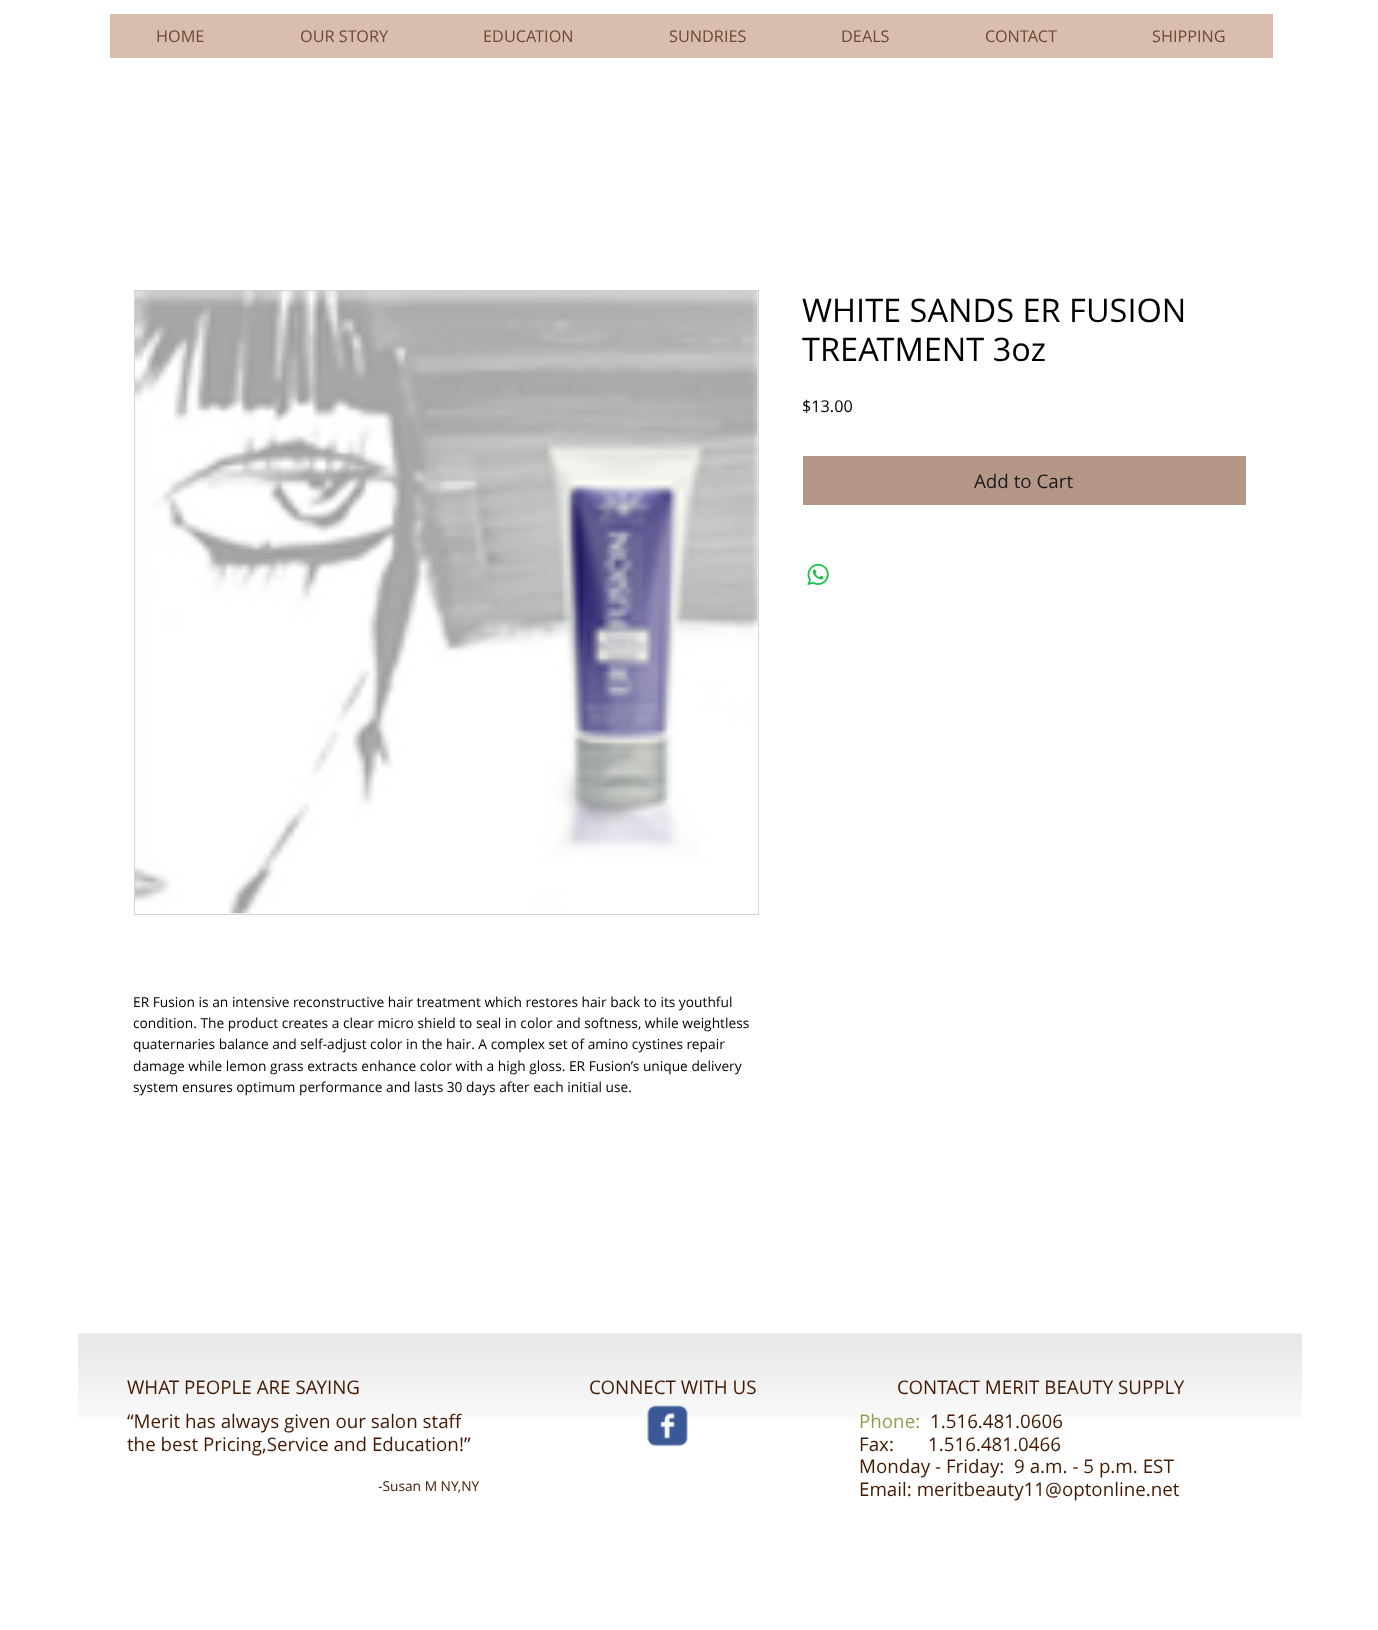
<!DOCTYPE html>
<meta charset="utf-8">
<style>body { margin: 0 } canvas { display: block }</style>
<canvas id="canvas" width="1378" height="1630"></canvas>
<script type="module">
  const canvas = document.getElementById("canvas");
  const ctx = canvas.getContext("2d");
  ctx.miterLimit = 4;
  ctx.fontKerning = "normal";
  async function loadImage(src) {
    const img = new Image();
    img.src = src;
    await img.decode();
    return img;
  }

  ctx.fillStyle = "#ffffff";
  ctx.fillRect(0, 0, 1378, 1630);
  ctx.fillStyle = "#d9beae";
  ctx.fillRect(110, 14, 1163, 44);
  ctx.font = "16.25px Open Sans";
  ctx.fillStyle = "#6a4835";
  ctx.fillText("HOME", 156, 42);
  ctx.fillText("OUR STORY", 300, 42);
  ctx.fillText("EDUCATION", 483, 42);
  ctx.fillText("SUNDRIES", 669, 42);
  ctx.fillText("DEALS", 841, 42);
  ctx.fillText("CONTACT", 985, 42);
  ctx.fillText("SHIPPING", 1152, 42);
  ctx.drawImage(await loadImage("img1.png"), 77, 123, 1, 1);
  ctx.font = "32.5px Open Sans";
  ctx.fillStyle = "#000000";
  ctx.fillText("WHITE SANDS ER FUSION", 802, 322);
  ctx.fillText("TREATMENT 3oz", 802, 361);
  ctx.font = "16.25px Open Sans";
  ctx.fillText("$13.00", 802, 412);
  ctx.fillStyle = "#b49787";
  ctx.fillRect(803, 456, 443, 49);
  ctx.font = "18.75px Open Sans";
  ctx.fillStyle = "#1a1a1a";
  ctx.fillText("Add to Cart", 974, 488);
  ctx.drawImage(await loadImage("img2.png"), 807, 563, 22, 23);
  ctx.strokeStyle = "#d4d3d3";
  ctx.strokeRect(134.5, 290.5, 624, 624);
  ctx.drawImage(await loadImage("img3.png"), 135, 290, 623, 624);
  ctx.font = "13.75px Open Sans";
  ctx.fillStyle = "#000000";
  ctx.fillText("ER Fusion is an intensive reconstructive hair treatment which restores hair back to its youthful", 133, 1007);
  ctx.fillText("condition. The product creates a clear micro shield to seal in color and softness, while weightless", 133, 1028);
  ctx.fillText("quaternaries balance and self-adjust color in the hair. A complex set of amino cystines repair", 133, 1049);
  ctx.fillText("damage while lemon grass extracts enhance color with a high gloss. ER Fusion’s unique delivery", 133, 1071);
  ctx.fillText("system ensures optimum performance and lasts 30 days after each initial use.", 133, 1092);
  ctx.drawImage(await loadImage("img4.png"), 78, 1333, 1224, 86);
  ctx.font = "18.75px Open Sans";
  ctx.fillStyle = "#441900";
  ctx.fillText("WHAT PEOPLE ARE SAYING", 127, 1394);
  ctx.fillText("CONNECT WITH US", 589, 1394);
  ctx.fillText("CONTACT MERIT BEAUTY SUPPLY", 897, 1394);
  ctx.fillText("“Merit has always given our salon staff", 127, 1428);
  ctx.fillText("the best Pricing,Service and Education!”", 127, 1451);
  ctx.drawImage(await loadImage("img5.png"), 647, 1405, 41, 41);
  ctx.fillStyle = "#8e9e50";
  ctx.fillText("Phone:", 859, 1428);
  ctx.fillStyle = "#441900";
  ctx.fillText("1.516.481.0606", 930, 1428);
  ctx.fillText("Fax:       1.516.481.0466", 859, 1451);
  ctx.fillText("Monday - Friday:  9 a.m. - 5 p.m. EST", 859, 1473);
  ctx.fillText("Email: meritbeauty11@optonline.net", 859, 1496);
  ctx.font = "13.75px Open Sans";
  ctx.fillText("-Susan M NY,NY", 378, 1491);
</script>
